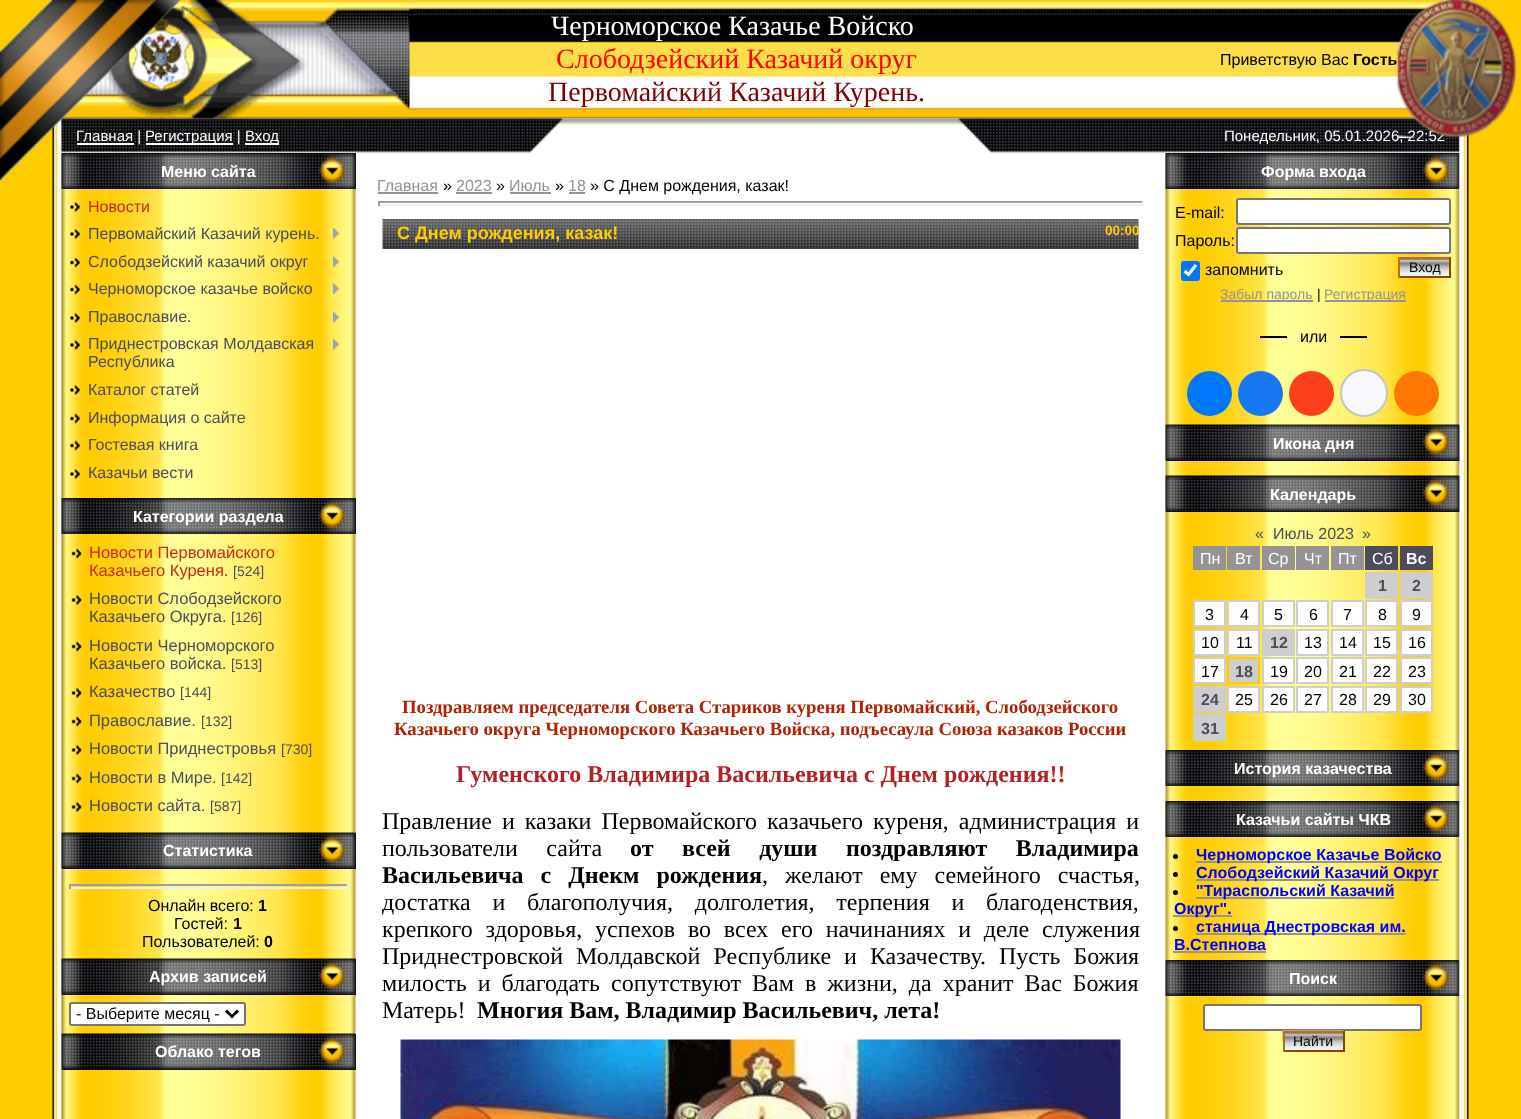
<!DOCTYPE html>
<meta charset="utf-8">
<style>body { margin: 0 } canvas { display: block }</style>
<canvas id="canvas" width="1521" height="1119"></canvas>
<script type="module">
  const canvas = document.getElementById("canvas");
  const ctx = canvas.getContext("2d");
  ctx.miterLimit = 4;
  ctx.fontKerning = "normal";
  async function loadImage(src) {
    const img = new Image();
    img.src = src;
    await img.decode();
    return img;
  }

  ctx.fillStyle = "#ffffff";
  ctx.fillRect(0, 0, 1521, 1119);
  ctx.fillStyle = "#ffcc00";
  ctx.fillRect(0, 0, 62, 1119);
  ctx.drawImage(await loadImage("img1.png"), 52, 118, 10, 1001);
  ctx.drawImage(await loadImage("img3.png"), 61, 0, 1384, 119);
  ctx.drawImage(await loadImage("img6.png"), 61, 118, 1399, 35);
  ctx.drawImage(await loadImage("img7.png"), 61, 118, 464, 35);
  ctx.drawImage(await loadImage("img4.png"), 61, 0, 349, 119);
  ctx.fillStyle = "#ffffff";
  ctx.fillRect(77, 143, 57, 2);
  ctx.font = "15px Liberation Sans";
  ctx.fillText("Главная |", 76, 141);
  ctx.fillRect(146, 143, 87, 2);
  ctx.fillText("Регистрация |", 145, 141);
  ctx.drawImage(await loadImage("img11.png"), 61, 153, 295, 966);
  ctx.fillStyle = "#000000";
  ctx.fillRect(355, 153, 1, 36);
  ctx.drawImage(await loadImage("img12.png"), 61, 153, 295, 36);
  ctx.font = "bold 16px Liberation Sans";
  ctx.fillStyle = "#ffffff";
  ctx.fillText("Меню сайта", 161, 177);
  ctx.drawImage(await loadImage("img2.png"), 0, 0, 180, 180);
  ctx.font = "28px Liberation Serif";
  ctx.fillText("Черноморское Казачье Войско", 551, 35);
  ctx.fillStyle = "#ff0000";
  ctx.fillText("Слободзейский Казачий округ", 556, 68);
  ctx.fillStyle = "#800000";
  ctx.fillText("Первомайский Казачий Курень.", 548, 101);
  ctx.font = "16px Liberation Sans";
  ctx.fillStyle = "#000000";
  ctx.fillText("Приветствую Вас", 1220, 65);
  ctx.font = "bold 16px Liberation Sans";
  ctx.fillText("Гость", 1353, 65);
  ctx.drawImage(await loadImage("img10.png"), 996, 118, 464, 35);
  ctx.font = "15px Liberation Sans";
  ctx.fillStyle = "#ffffff";
  ctx.fillText("Понедельник, 05.01.2026, 22:52", 1224, 141);
  ctx.fillStyle = "#ffcc00";
  ctx.fillRect(1469, 0, 52, 1119);
  ctx.drawImage(await loadImage("img22.png"), 1165, 153, 295, 966);
  ctx.drawImage(await loadImage("img23.png"), 1165, 153, 295, 36);
  ctx.fillStyle = "#000000";
  ctx.fillRect(1166, 425, 294, 36);
  ctx.drawImage(await loadImage("img25.png"), 1165, 424, 295, 37);
  ctx.fillRect(1166, 476, 294, 36);
  ctx.drawImage(await loadImage("img25.png"), 1165, 475, 295, 37);
  ctx.drawImage(await loadImage("img23.png"), 1165, 750, 295, 36);
  ctx.drawImage(await loadImage("img23.png"), 1165, 801, 295, 36);
  ctx.drawImage(await loadImage("img23.png"), 1165, 960, 295, 36);
  ctx.drawImage(await loadImage("img27.png"), 1459, 0, 10, 1119);
  ctx.drawImage(await loadImage("img5.png"), 1396, 0, 121, 138);
  ctx.fillStyle = "#ffffff";
  ctx.fillRect(245, 143, 34, 2);
  ctx.fillText("Вход", 245, 141);
  ctx.drawImage(await loadImage("img8.png"), 525, 118, 39, 35);
  ctx.drawImage(await loadImage("img9.png"), 957, 118, 39, 35);
  ctx.drawImage(await loadImage("img13.png"), 70, 202, 10, 10);
  ctx.font = "16px Liberation Sans";
  ctx.fillStyle = "#ca2913";
  ctx.fillText("Новости", 88, 212);
  ctx.drawImage(await loadImage("img13.png"), 70, 229, 10, 10);
  ctx.fillStyle = "#4b4d5c";
  ctx.fillText("Первомайский Казачий курень.", 88, 239);
  ctx.drawImage(await loadImage("img14.png"), 333, 228, 6, 11);
  ctx.drawImage(await loadImage("img15.png"), 70, 257, 10, 11);
  ctx.fillText("Слободзейский казачий округ", 88, 267);
  ctx.drawImage(await loadImage("img16.png"), 333, 256, 6, 11);
  ctx.drawImage(await loadImage("img15.png"), 70, 284, 10, 11);
  ctx.fillText("Черноморское казачье войско", 88, 294);
  ctx.drawImage(await loadImage("img16.png"), 333, 283, 6, 11);
  ctx.drawImage(await loadImage("img13.png"), 70, 313, 10, 10);
  ctx.fillText("Православие.", 88, 322);
  ctx.drawImage(await loadImage("img14.png"), 333, 312, 6, 11);
  ctx.drawImage(await loadImage("img13.png"), 70, 340, 10, 10);
  ctx.fillText("Приднестровская Молдавская", 88, 349);
  ctx.drawImage(await loadImage("img14.png"), 333, 339, 6, 11);
  ctx.fillText("Республика", 88, 367);
  ctx.drawImage(await loadImage("img13.png"), 70, 385, 10, 10);
  ctx.fillText("Каталог статей", 88, 395);
  ctx.drawImage(await loadImage("img15.png"), 70, 413, 10, 11);
  ctx.fillText("Информация о сайте", 88, 423);
  ctx.drawImage(await loadImage("img15.png"), 70, 440, 10, 11);
  ctx.fillText("Гостевая книга", 88, 450);
  ctx.drawImage(await loadImage("img13.png"), 70, 469, 10, 10);
  ctx.fillText("Казачьи вести", 88, 478);
  ctx.fillStyle = "#000000";
  ctx.fillRect(355, 498, 1, 36);
  ctx.drawImage(await loadImage("img12.png"), 61, 498, 295, 36);
  ctx.font = "bold 16px Liberation Sans";
  ctx.fillStyle = "#ffffff";
  ctx.fillText("Категории раздела", 133, 522);
  ctx.drawImage(await loadImage("img17.png"), 71, 548, 11, 11);
  ctx.font = "16.5px Liberation Sans";
  ctx.fillStyle = "#ca2913";
  ctx.fillText("Новости Первомайского", 89, 558);
  ctx.fillText("Казачьего Куреня.", 89, 576);
  ctx.font = "14px Liberation Sans";
  ctx.fillStyle = "#4b4d5c";
  ctx.fillText("[524]", 233, 576);
  ctx.drawImage(await loadImage("img18.png"), 71, 595, 11, 10);
  ctx.font = "16.5px Liberation Sans";
  ctx.fillText("Новости Слободзейского", 89, 604);
  ctx.fillText("Казачьего Округа.", 89, 622);
  ctx.font = "14px Liberation Sans";
  ctx.fillText("[126]", 231, 622);
  ctx.drawImage(await loadImage("img17.png"), 71, 641, 11, 11);
  ctx.font = "16.5px Liberation Sans";
  ctx.fillText("Новости Черноморского", 89, 651);
  ctx.fillText("Казачьего войска.", 89, 669);
  ctx.font = "14px Liberation Sans";
  ctx.fillText("[513]", 231, 669);
  ctx.drawImage(await loadImage("img18.png"), 71, 688, 11, 10);
  ctx.font = "16.5px Liberation Sans";
  ctx.fillText("Казачество", 89, 697);
  ctx.font = "14px Liberation Sans";
  ctx.fillText("[144]", 180, 697);
  ctx.drawImage(await loadImage("img17.png"), 71, 716, 11, 11);
  ctx.font = "16.5px Liberation Sans";
  ctx.fillText("Православие.", 89, 726);
  ctx.font = "14px Liberation Sans";
  ctx.fillText("[132]", 201, 726);
  ctx.drawImage(await loadImage("img18.png"), 71, 745, 11, 10);
  ctx.font = "16.5px Liberation Sans";
  ctx.fillText("Новости Приднестровья", 89, 754);
  ctx.font = "14px Liberation Sans";
  ctx.fillText("[730]", 281, 754);
  ctx.drawImage(await loadImage("img17.png"), 71, 773, 11, 11);
  ctx.font = "16.5px Liberation Sans";
  ctx.fillText("Новости в Мире.", 89, 783);
  ctx.font = "14px Liberation Sans";
  ctx.fillText("[142]", 221, 783);
  ctx.drawImage(await loadImage("img18.png"), 71, 802, 11, 10);
  ctx.font = "16.5px Liberation Sans";
  ctx.fillText("Новости сайта.", 89, 811);
  ctx.font = "14px Liberation Sans";
  ctx.fillText("[587]", 210, 811);
  ctx.fillStyle = "#000000";
  ctx.fillRect(62, 833, 294, 36);
  ctx.drawImage(await loadImage("img19.png"), 61, 832, 295, 37);
  ctx.font = "bold 16px Liberation Sans";
  ctx.fillStyle = "#ffffff";
  ctx.fillText("Статистика", 163, 856);
  ctx.fillStyle = "#9f9f9f";
  ctx.fillRect(69, 884, 279, 2);
  ctx.fillStyle = "#eeeeee";
  ctx.fillRect(347, 884, 2, 5);
  ctx.fillRect(69, 887, 279, 2);
  ctx.fillStyle = "#9f9f9f";
  ctx.fillRect(69, 884, 2, 5);
  ctx.font = "16px Liberation Sans";
  ctx.fillStyle = "#000000";
  ctx.fillText("Онлайн всего:", 148, 911);
  ctx.font = "bold 16px Liberation Sans";
  ctx.fillText("1", 258, 911);
  ctx.font = "16px Liberation Sans";
  ctx.fillText("Гостей:", 174, 929);
  ctx.font = "bold 16px Liberation Sans";
  ctx.fillText("1", 233, 929);
  ctx.font = "16px Liberation Sans";
  ctx.fillText("Пользователей:", 142, 947);
  ctx.font = "bold 16px Liberation Sans";
  ctx.fillText("0", 264, 947);
  ctx.fillRect(62, 959, 294, 36);
  ctx.drawImage(await loadImage("img19.png"), 61, 958, 295, 37);
  ctx.fillStyle = "#ffffff";
  ctx.fillText("Архив записей", 149, 982);
  ctx.beginPath();
  ctx.roundRect(70, 1003, 175, 22, 2);
  ctx.fill();
  ctx.strokeStyle = "#767676";
  ctx.lineWidth = 2;
  ctx.stroke();
  ctx.beginPath();
  ctx.moveTo(226, 1010.5);
  ctx.lineTo(232, 1016.5);
  ctx.lineTo(238, 1010.5);
  ctx.strokeStyle = "#000000";
  ctx.lineWidth = 3;
  ctx.stroke();
  ctx.font = "16px Liberation Sans";
  ctx.fillStyle = "#000000";
  ctx.fillText("- Выберите месяц -", 76, 1019);
  ctx.fillRect(62, 1034, 294, 36);
  ctx.drawImage(await loadImage("img19.png"), 61, 1033, 295, 37);
  ctx.font = "bold 16px Liberation Sans";
  ctx.fillStyle = "#ffffff";
  ctx.fillText("Облако тегов", 155, 1057);
  ctx.font = "16px Liberation Sans";
  ctx.fillStyle = "#959393";
  ctx.fillText("Главная", 377, 191);
  ctx.fillRect(378, 192, 60, 2);
  ctx.fillStyle = "#000000";
  ctx.fillText("»", 443, 191);
  ctx.fillStyle = "#959393";
  ctx.fillText("2023", 456, 191);
  ctx.fillRect(456, 192, 36, 2);
  ctx.fillStyle = "#000000";
  ctx.fillText("»", 496, 191);
  ctx.fillStyle = "#959393";
  ctx.fillText("Июль", 509, 191);
  ctx.fillRect(510, 192, 41, 2);
  ctx.fillStyle = "#000000";
  ctx.fillText("»", 555, 191);
  ctx.fillStyle = "#959393";
  ctx.fillText("18", 568, 191);
  ctx.fillRect(569, 192, 16, 2);
  ctx.fillStyle = "#000000";
  ctx.fillText("» С Днем рождения, казак!", 590, 191);
  ctx.fillStyle = "#9f9f9f";
  ctx.fillRect(378, 201, 765, 2);
  ctx.fillStyle = "#eeeeee";
  ctx.fillRect(1142, 201, 2, 5);
  ctx.fillRect(378, 204, 765, 2);
  ctx.fillStyle = "#9f9f9f";
  ctx.fillRect(378, 201, 2, 5);
  ctx.drawImage(await loadImage("img20.png"), 382, 219, 757, 30);
  ctx.font = "bold 18px Liberation Sans";
  ctx.fillStyle = "#ffcc00";
  ctx.fillText("С Днем рождения, казак!", 397, 239);
  ctx.font = "bold 13.5px Liberation Sans";
  ctx.fillText("00:00", 1105, 235);
  ctx.font = "bold 18.7px Liberation Serif";
  ctx.fillStyle = "#b22200";
  ctx.fillText("Поздравляем председателя Совета Стариков куреня Первомайский, Слободзейского", 402, 713);
  ctx.fillText("Казачьего округа Черноморского Казачьего Войска, подъесаула Союза казаков России", 394, 735);
  ctx.font = "bold 24px Liberation Serif";
  ctx.fillStyle = "#b22222";
  ctx.fillText("Гуменского Владимира Васильевича с Днем рождения!!", 456, 782);
  ctx.wordSpacing = "4px";
  ctx.font = "24px Liberation Serif";
  ctx.fillStyle = "#000000";
  ctx.fillText("Правление и казаки Первомайского казачьего куреня, администрация и", 382, 829);
  ctx.wordSpacing = "22.5px";
  ctx.fillText("пользователи сайта", 382, 856);
  ctx.font = "bold 24px Liberation Serif";
  ctx.fillText("от всей души поздравляют Владимира", 630, 856);
  ctx.wordSpacing = "11px";
  ctx.fillText("Васильевича с Днекм рождения", 382, 883);
  ctx.font = "24px Liberation Serif";
  ctx.fillText(", желают ему семейного счастья,", 762, 883);
  ctx.wordSpacing = "15.75px";
  ctx.fillText("достатка и благополучия, долголетия, терпения и благоденствия,", 382, 910);
  ctx.wordSpacing = "6.75px";
  ctx.fillText("крепкого здоровья, успехов во всех его начинаниях и деле служения", 382, 937);
  ctx.wordSpacing = "7px";
  ctx.fillText("Приднестровской Молдавской Республике и Казачеству. Пусть Божия", 382, 964);
  ctx.wordSpacing = "5px";
  ctx.fillText("милость и благодать сопутствуют Вам в жизни, да хранит Вас Божия", 382, 991);
  ctx.wordSpacing = "0px";
  ctx.fillText("Матерь!", 382, 1018);
  ctx.font = "bold 24px Liberation Serif";
  ctx.fillText("Многия Вам, Владимир Васильевич, лета!", 477, 1018);
  ctx.drawImage(await loadImage("img21.png"), 400, 1039, 721, 80);
  ctx.font = "bold 16px Liberation Sans";
  ctx.fillStyle = "#ffffff";
  ctx.fillText("Форма входа", 1261, 177);
  ctx.font = "16px Liberation Sans";
  ctx.fillStyle = "#000000";
  ctx.fillText("E-mail:", 1175, 218);
  ctx.fillStyle = "#ffffff";
  ctx.beginPath();
  ctx.roundRect(1237, 199, 213, 25, 2);
  ctx.fill();
  ctx.strokeStyle = "#767676";
  ctx.lineWidth = 2;
  ctx.stroke();
  ctx.fillStyle = "#000000";
  ctx.fillText("Пароль:", 1175, 246);
  ctx.fillStyle = "#ffffff";
  ctx.beginPath();
  ctx.roundRect(1237, 228, 213, 25, 2);
  ctx.fill();
  ctx.stroke();
  ctx.fillStyle = "#0075ff";
  ctx.beginPath();
  ctx.roundRect(1181, 261, 19, 20, 3);
  ctx.fill();
  ctx.beginPath();
  ctx.moveTo(1184.5, 271);
  ctx.lineTo(1188.5, 274.5);
  ctx.lineTo(1196, 265);
  ctx.strokeStyle = "#ffffff";
  ctx.lineWidth = 3.1;
  ctx.stroke();
  ctx.fillStyle = "#000000";
  ctx.fillText("запомнить", 1205, 275);
  ctx.drawImage(await loadImage("img24.png"), 1398, 256, 53, 20);
  ctx.fillStyle = "#c66d00";
  ctx.fillRect(1398, 257, 53, 2);
  ctx.fillStyle = "#844900";
  ctx.fillRect(1449, 257, 2, 21);
  ctx.fillRect(1398, 276, 53, 2);
  ctx.fillStyle = "#c66d00";
  ctx.fillRect(1398, 257, 2, 21);
  ctx.font = "14px Liberation Sans";
  ctx.fillStyle = "#000000";
  ctx.fillText("Вход", 1409, 272);
  ctx.fillStyle = "#959393";
  ctx.fillRect(1221, 300, 92, 2);
  ctx.fillText("Забыл пароль", 1220, 299);
  ctx.fillStyle = "#000000";
  ctx.fillText("|", 1317, 299);
  ctx.fillStyle = "#959393";
  ctx.fillRect(1325, 300, 81, 2);
  ctx.fillText("Регистрация", 1324, 299);
  ctx.fillStyle = "#000000";
  ctx.fillRect(1260, 336, 27, 2);
  ctx.font = "16px Liberation Sans";
  ctx.fillText("или", 1300, 342);
  ctx.fillRect(1340, 336, 27, 2);
  ctx.fillStyle = "#0077ff";
  ctx.beginPath();
  ctx.arc(1209.5, 393.5, 22.5, 0, Math.PI * 2);
  ctx.fill();
  ctx.fillStyle = "#1877f2";
  ctx.beginPath();
  ctx.arc(1260.5, 393.5, 22.5, 0, Math.PI * 2);
  ctx.fill();
  ctx.fillStyle = "#fc3f1d";
  ctx.beginPath();
  ctx.arc(1311.5, 393.5, 22.5, 0, Math.PI * 2);
  ctx.fill();
  ctx.fillStyle = "#f8f8fc";
  ctx.beginPath();
  ctx.arc(1364, 393, 23, 0, Math.PI * 2);
  ctx.fill();
  ctx.strokeStyle = "#c4c4c4";
  ctx.lineWidth = 2;
  ctx.stroke();
  ctx.fillStyle = "#ff7700";
  ctx.beginPath();
  ctx.arc(1416.5, 393.5, 22.5, 0, Math.PI * 2);
  ctx.fill();
  ctx.font = "bold 16px Liberation Sans";
  ctx.fillStyle = "#ffffff";
  ctx.fillText("Икона дня", 1273, 449);
  ctx.fillText("Календарь", 1270, 500);
  ctx.font = "16px Liberation Sans";
  ctx.fillStyle = "#4b4d5c";
  ctx.fillText("«", 1255, 539);
  ctx.fillText("Июль 2023", 1273, 539);
  ctx.fillText("»", 1362, 539);
  ctx.fillStyle = "#959393";
  ctx.fillRect(1193, 546, 33, 24);
  ctx.fillStyle = "#ffffff";
  ctx.fillText("Пн", 1200, 564);
  ctx.fillStyle = "#959393";
  ctx.fillRect(1227, 546, 33, 24);
  ctx.fillStyle = "#ffffff";
  ctx.fillText("Вт", 1235, 564);
  ctx.fillStyle = "#959393";
  ctx.fillRect(1262, 546, 33, 24);
  ctx.fillStyle = "#ffffff";
  ctx.fillText("Ср", 1268, 564);
  ctx.fillStyle = "#959393";
  ctx.fillRect(1296, 546, 33, 24);
  ctx.fillStyle = "#ffffff";
  ctx.fillText("Чт", 1304, 564);
  ctx.fillStyle = "#959393";
  ctx.fillRect(1331, 546, 33, 24);
  ctx.fillStyle = "#ffffff";
  ctx.fillText("Пт", 1338, 564);
  ctx.fillStyle = "#4b4d5c";
  ctx.fillRect(1365, 546, 33, 24);
  ctx.fillStyle = "#ffffff";
  ctx.fillText("Сб", 1372, 564);
  ctx.fillStyle = "#4b4d5c";
  ctx.fillRect(1400, 546, 33, 24);
  ctx.font = "bold 16px Liberation Sans";
  ctx.fillStyle = "#ffffff";
  ctx.fillText("Вс", 1406, 564);
  ctx.fillStyle = "#cecece";
  ctx.fillRect(1365, 572, 33, 27);
  ctx.fillStyle = "#4b4d5c";
  ctx.fillText("1", 1378, 591);
  ctx.fillStyle = "#cecece";
  ctx.fillRect(1400, 572, 33, 27);
  ctx.fillStyle = "#4b4d5c";
  ctx.fillText("2", 1412, 591);
  ctx.fillStyle = "#ffffff";
  ctx.beginPath();
  ctx.rect(1194, 601, 31, 25);
  ctx.fill();
  ctx.strokeStyle = "#cecece";
  ctx.stroke();
  ctx.font = "16px Liberation Sans";
  ctx.fillStyle = "#000000";
  ctx.fillText("3", 1205, 620);
  ctx.fillStyle = "#ffffff";
  ctx.beginPath();
  ctx.rect(1228, 601, 31, 25);
  ctx.fill();
  ctx.stroke();
  ctx.fillStyle = "#000000";
  ctx.fillText("4", 1240, 620);
  ctx.fillStyle = "#ffffff";
  ctx.beginPath();
  ctx.rect(1263, 601, 31, 25);
  ctx.fill();
  ctx.stroke();
  ctx.fillStyle = "#000000";
  ctx.fillText("5", 1274, 620);
  ctx.fillStyle = "#ffffff";
  ctx.beginPath();
  ctx.rect(1297, 601, 31, 25);
  ctx.fill();
  ctx.stroke();
  ctx.fillStyle = "#000000";
  ctx.fillText("6", 1309, 620);
  ctx.fillStyle = "#ffffff";
  ctx.beginPath();
  ctx.rect(1332, 601, 31, 25);
  ctx.fill();
  ctx.stroke();
  ctx.fillStyle = "#000000";
  ctx.fillText("7", 1343, 620);
  ctx.fillStyle = "#ffffff";
  ctx.beginPath();
  ctx.rect(1366, 601, 31, 25);
  ctx.fill();
  ctx.stroke();
  ctx.fillStyle = "#000000";
  ctx.fillText("8", 1378, 620);
  ctx.fillStyle = "#ffffff";
  ctx.beginPath();
  ctx.rect(1401, 601, 31, 25);
  ctx.fill();
  ctx.stroke();
  ctx.fillStyle = "#000000";
  ctx.fillText("9", 1412, 620);
  ctx.fillStyle = "#ffffff";
  ctx.beginPath();
  ctx.rect(1194, 630, 31, 25);
  ctx.fill();
  ctx.stroke();
  ctx.fillStyle = "#000000";
  ctx.fillText("10", 1201, 648);
  ctx.fillStyle = "#ffffff";
  ctx.beginPath();
  ctx.rect(1228, 630, 31, 25);
  ctx.fill();
  ctx.stroke();
  ctx.fillStyle = "#000000";
  ctx.fillText("11", 1236, 648);
  ctx.fillStyle = "#cecece";
  ctx.fillRect(1262, 629, 33, 27);
  ctx.font = "bold 16px Liberation Sans";
  ctx.fillStyle = "#4b4d5c";
  ctx.fillText("12", 1270, 648);
  ctx.fillStyle = "#ffffff";
  ctx.beginPath();
  ctx.rect(1297, 630, 31, 25);
  ctx.fill();
  ctx.stroke();
  ctx.font = "16px Liberation Sans";
  ctx.fillStyle = "#000000";
  ctx.fillText("13", 1304, 648);
  ctx.fillStyle = "#ffffff";
  ctx.beginPath();
  ctx.rect(1332, 630, 31, 25);
  ctx.fill();
  ctx.stroke();
  ctx.fillStyle = "#000000";
  ctx.fillText("14", 1339, 648);
  ctx.fillStyle = "#ffffff";
  ctx.beginPath();
  ctx.rect(1366, 630, 31, 25);
  ctx.fill();
  ctx.stroke();
  ctx.fillStyle = "#000000";
  ctx.fillText("15", 1373, 648);
  ctx.fillStyle = "#ffffff";
  ctx.beginPath();
  ctx.rect(1401, 630, 31, 25);
  ctx.fill();
  ctx.stroke();
  ctx.fillStyle = "#000000";
  ctx.fillText("16", 1408, 648);
  ctx.fillStyle = "#ffffff";
  ctx.beginPath();
  ctx.rect(1194, 658, 31, 25);
  ctx.fill();
  ctx.stroke();
  ctx.fillStyle = "#000000";
  ctx.fillText("17", 1201, 677);
  ctx.fillStyle = "#cecece";
  ctx.beginPath();
  ctx.rect(1228, 658, 31, 25);
  ctx.fill();
  ctx.strokeStyle = "#ffcc00";
  ctx.stroke();
  ctx.font = "bold 16px Liberation Sans";
  ctx.fillStyle = "#4b4d5c";
  ctx.fillText("18", 1235, 677);
  ctx.fillStyle = "#ffffff";
  ctx.beginPath();
  ctx.rect(1263, 658, 31, 25);
  ctx.fill();
  ctx.strokeStyle = "#cecece";
  ctx.stroke();
  ctx.font = "16px Liberation Sans";
  ctx.fillStyle = "#000000";
  ctx.fillText("19", 1270, 677);
  ctx.fillStyle = "#ffffff";
  ctx.beginPath();
  ctx.rect(1297, 658, 31, 25);
  ctx.fill();
  ctx.stroke();
  ctx.fillStyle = "#000000";
  ctx.fillText("20", 1304, 677);
  ctx.fillStyle = "#ffffff";
  ctx.beginPath();
  ctx.rect(1332, 658, 31, 25);
  ctx.fill();
  ctx.stroke();
  ctx.fillStyle = "#000000";
  ctx.fillText("21", 1339, 677);
  ctx.fillStyle = "#ffffff";
  ctx.beginPath();
  ctx.rect(1366, 658, 31, 25);
  ctx.fill();
  ctx.stroke();
  ctx.fillStyle = "#000000";
  ctx.fillText("22", 1373, 677);
  ctx.fillStyle = "#ffffff";
  ctx.beginPath();
  ctx.rect(1401, 658, 31, 25);
  ctx.fill();
  ctx.stroke();
  ctx.fillStyle = "#000000";
  ctx.fillText("23", 1408, 677);
  ctx.fillStyle = "#cecece";
  ctx.fillRect(1193, 686, 33, 27);
  ctx.font = "bold 16px Liberation Sans";
  ctx.fillStyle = "#4b4d5c";
  ctx.fillText("24", 1201, 705);
  ctx.fillStyle = "#ffffff";
  ctx.beginPath();
  ctx.rect(1228, 687, 31, 25);
  ctx.fill();
  ctx.stroke();
  ctx.font = "16px Liberation Sans";
  ctx.fillStyle = "#000000";
  ctx.fillText("25", 1235, 705);
  ctx.fillStyle = "#ffffff";
  ctx.beginPath();
  ctx.rect(1263, 687, 31, 25);
  ctx.fill();
  ctx.stroke();
  ctx.fillStyle = "#000000";
  ctx.fillText("26", 1270, 705);
  ctx.fillStyle = "#ffffff";
  ctx.beginPath();
  ctx.rect(1297, 687, 31, 25);
  ctx.fill();
  ctx.stroke();
  ctx.fillStyle = "#000000";
  ctx.fillText("27", 1304, 705);
  ctx.fillStyle = "#ffffff";
  ctx.beginPath();
  ctx.rect(1332, 687, 31, 25);
  ctx.fill();
  ctx.stroke();
  ctx.fillStyle = "#000000";
  ctx.fillText("28", 1339, 705);
  ctx.fillStyle = "#ffffff";
  ctx.beginPath();
  ctx.rect(1366, 687, 31, 25);
  ctx.fill();
  ctx.stroke();
  ctx.fillStyle = "#000000";
  ctx.fillText("29", 1373, 705);
  ctx.fillStyle = "#ffffff";
  ctx.beginPath();
  ctx.rect(1401, 687, 31, 25);
  ctx.fill();
  ctx.stroke();
  ctx.fillStyle = "#000000";
  ctx.fillText("30", 1408, 705);
  ctx.fillStyle = "#cecece";
  ctx.fillRect(1193, 714, 33, 27);
  ctx.font = "bold 16px Liberation Sans";
  ctx.fillStyle = "#4b4d5c";
  ctx.fillText("31", 1201, 734);
  ctx.fillStyle = "#ffffff";
  ctx.fillText("История казачества", 1234, 774);
  ctx.fillText("Казачьи сайты ЧКВ", 1236, 825);
  ctx.fillStyle = "#000000";
  ctx.beginPath();
  ctx.arc(1175.5, 856.5, 2.5, 0, Math.PI * 2);
  ctx.fill();
  ctx.fillStyle = "#959393";
  ctx.fillRect(1196, 861, 246, 2);
  ctx.fillStyle = "#0000ff";
  ctx.fillText("Черноморское Казачье Войско", 1196, 860);
  ctx.fillStyle = "#000000";
  ctx.beginPath();
  ctx.arc(1175.5, 874.5, 2.5, 0, Math.PI * 2);
  ctx.fill();
  ctx.fillStyle = "#959393";
  ctx.fillRect(1196, 879, 243, 2);
  ctx.fillStyle = "#0000ff";
  ctx.fillText("Слободзейский Казачий Округ", 1196, 878);
  ctx.fillStyle = "#000000";
  ctx.beginPath();
  ctx.arc(1175.5, 892.5, 2.5, 0, Math.PI * 2);
  ctx.fill();
  ctx.fillStyle = "#959393";
  ctx.fillRect(1196, 897, 198, 2);
  ctx.fillStyle = "#0000ff";
  ctx.fillText("\"Тираспольский Казачий", 1196, 896);
  ctx.fillStyle = "#959393";
  ctx.fillRect(1173, 915, 59, 2);
  ctx.fillStyle = "#0000ff";
  ctx.fillText("Округ\".", 1174, 914);
  ctx.fillStyle = "#000000";
  ctx.beginPath();
  ctx.arc(1175.5, 928.5, 2.5, 0, Math.PI * 2);
  ctx.fill();
  ctx.fillStyle = "#959393";
  ctx.fillRect(1196, 933, 210, 2);
  ctx.fillStyle = "#0000ff";
  ctx.fillText("станица Днестровская им.", 1196, 932);
  ctx.fillText("В.Степнова", 1174, 950);
  ctx.fillStyle = "#959393";
  ctx.fillRect(1173, 951, 93, 2);
  ctx.fillStyle = "#ffffff";
  ctx.fillText("Поиск", 1289, 984);
  ctx.beginPath();
  ctx.roundRect(1204, 1005, 217, 25, 2);
  ctx.fill();
  ctx.strokeStyle = "#767676";
  ctx.stroke();
  ctx.drawImage(await loadImage("img26.png"), 1282, 1030, 62, 22);
  ctx.fillStyle = "#c66d00";
  ctx.fillRect(1283, 1031, 61, 2);
  ctx.fillStyle = "#844900";
  ctx.fillRect(1343, 1031, 2, 21);
  ctx.fillRect(1283, 1050, 61, 2);
  ctx.fillStyle = "#c66d00";
  ctx.fillRect(1283, 1031, 2, 21);
  ctx.font = "14px Liberation Sans";
  ctx.fillStyle = "#000000";
  ctx.fillText("Найти", 1293, 1046);
</script>
